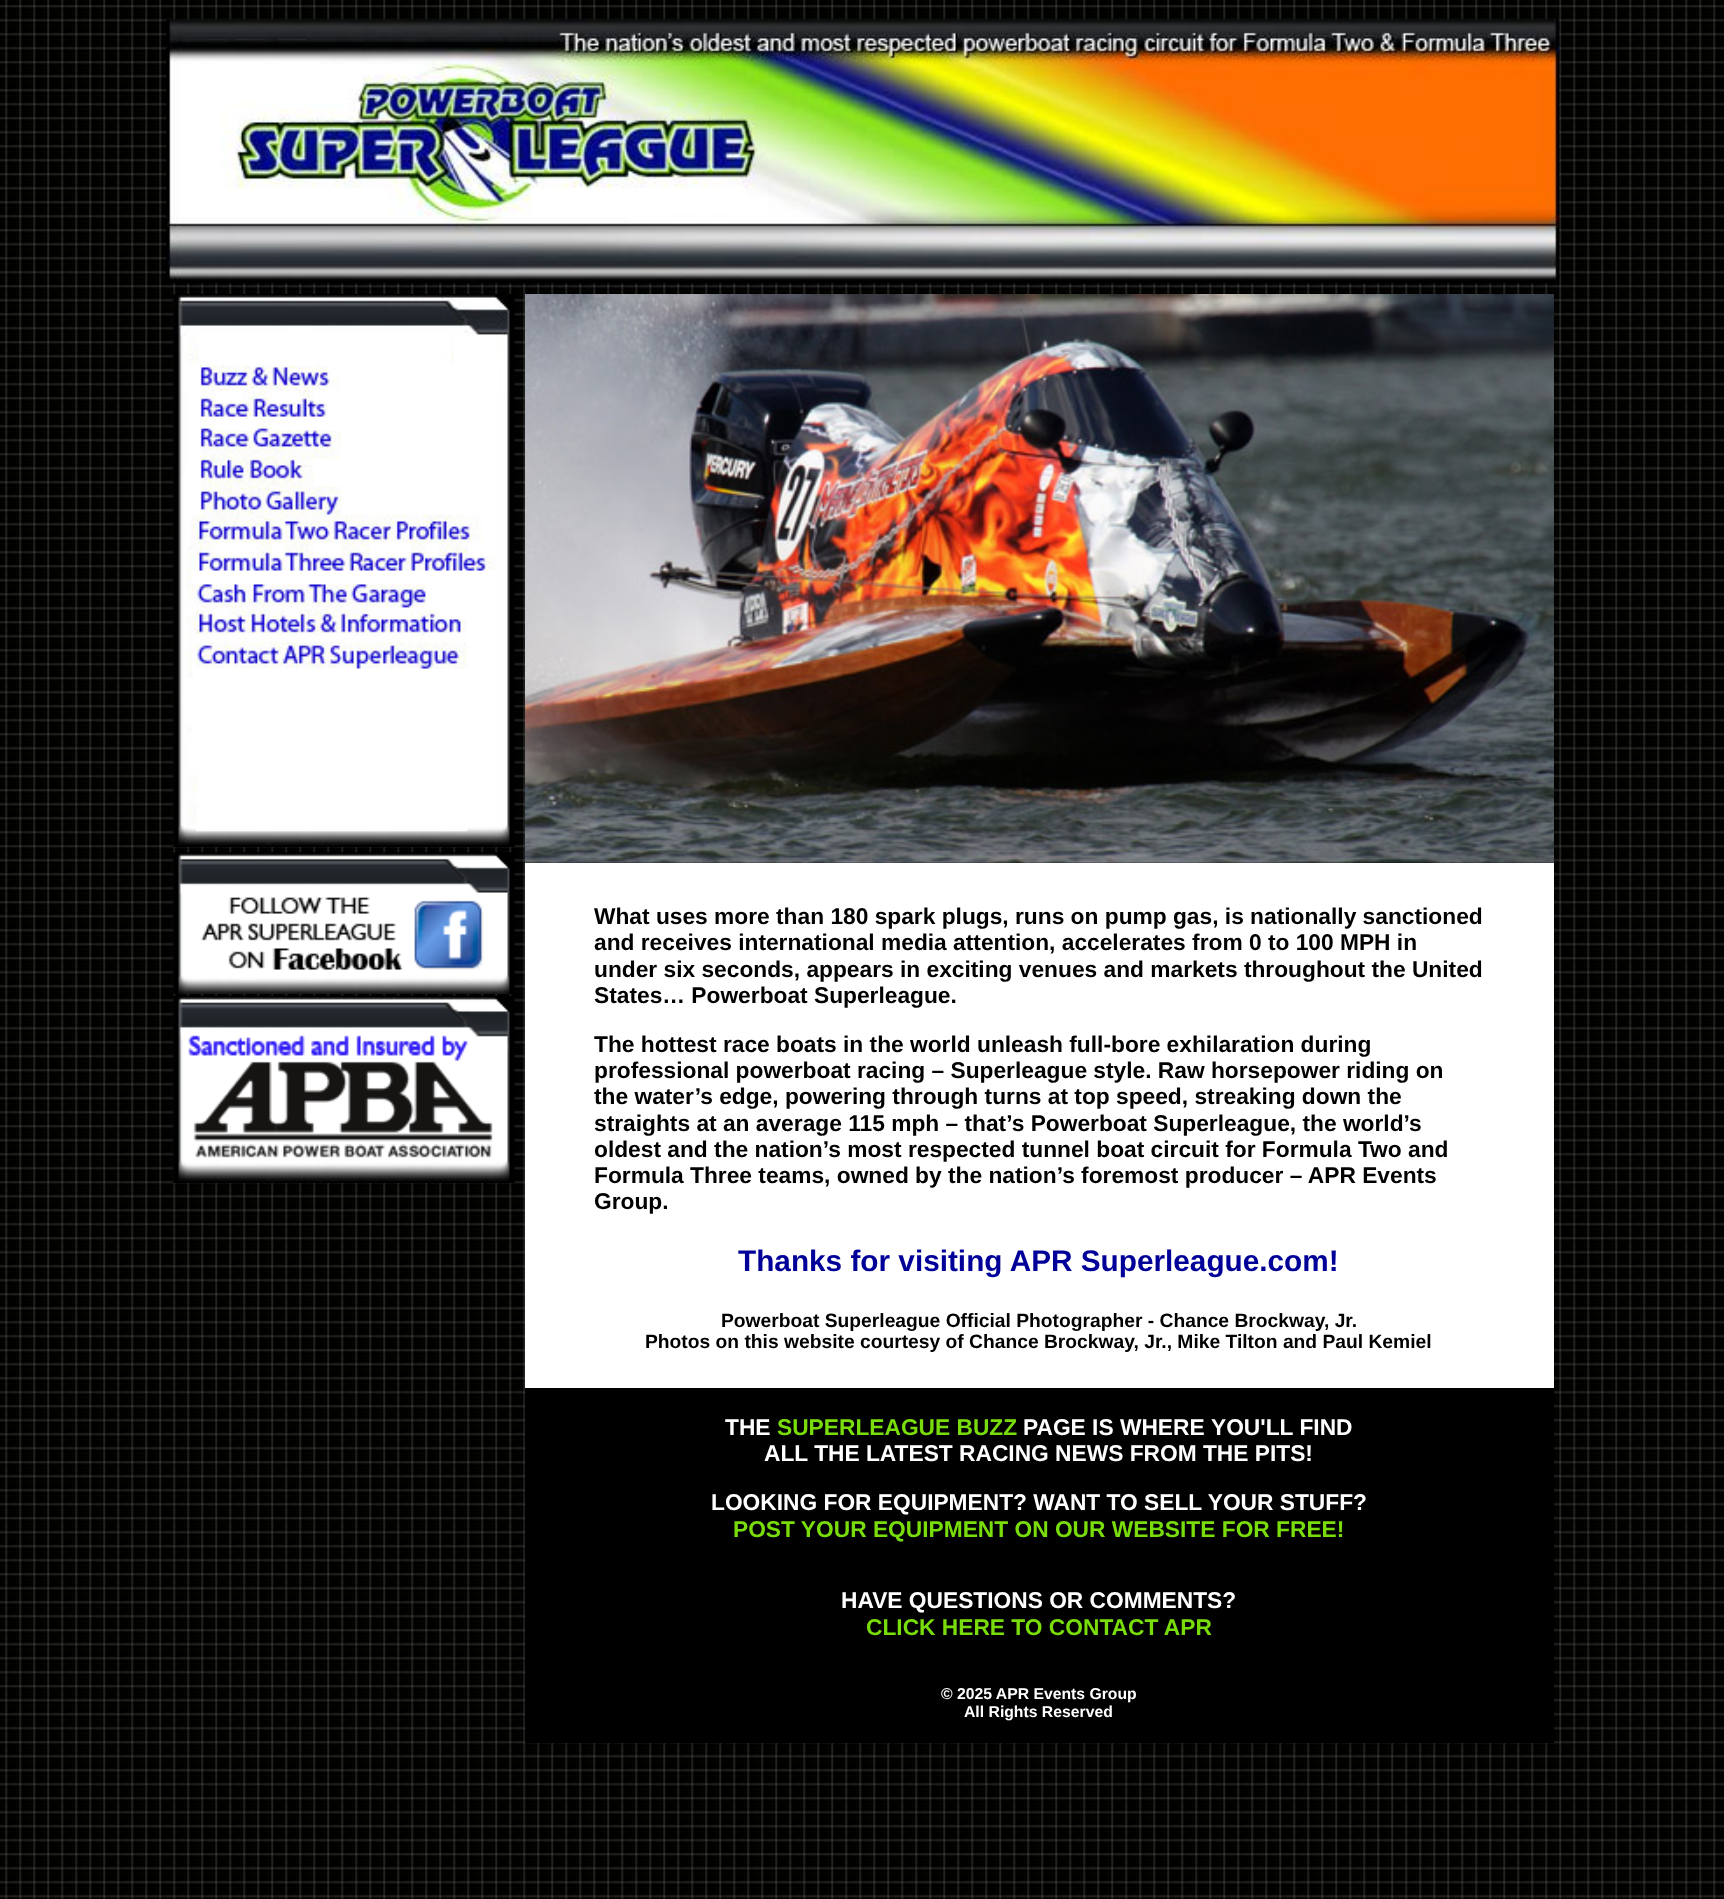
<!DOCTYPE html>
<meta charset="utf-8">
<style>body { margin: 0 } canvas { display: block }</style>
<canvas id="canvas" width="1724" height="1899"></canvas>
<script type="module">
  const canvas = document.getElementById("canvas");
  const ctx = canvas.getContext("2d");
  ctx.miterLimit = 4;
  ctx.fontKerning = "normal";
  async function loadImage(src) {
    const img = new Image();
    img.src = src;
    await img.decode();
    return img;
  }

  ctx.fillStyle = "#ffffff";
  ctx.fillRect(0, 0, 1724, 1899);
  ctx.drawImage(await loadImage("img1.png"), 0, 0, 1724, 1899);
  ctx.drawImage(await loadImage("img2.png"), 166, 19, 1394, 265);
  ctx.drawImage(await loadImage("img3.png"), 173, 294, 342, 553);
  ctx.drawImage(await loadImage("img4.png"), 173, 852, 342, 142);
  ctx.drawImage(await loadImage("img5.png"), 173, 995, 342, 188);
  ctx.drawImage(await loadImage("img6.png"), 525, 294, 1029, 569);
  ctx.fillRect(525, 863, 1029, 525);
  ctx.font = "bold 22.75px Liberation Sans";
  ctx.fillStyle = "#000000";
  ctx.fillText("What uses more than 180 spark plugs, runs on pump gas, is nationally sanctioned", 594, 924);
  ctx.fillText("and receives international media attention, accelerates from 0 to 100 MPH in", 594, 950);
  ctx.fillText("under six seconds, appears in exciting venues and markets throughout the United", 594, 977);
  ctx.fillText("States… Powerboat Superleague.", 594, 1003);
  ctx.fillText("The hottest race boats in the world unleash full-bore exhilaration during", 594, 1052);
  ctx.fillText("professional powerboat racing – Superleague style. Raw horsepower riding on", 594, 1078);
  ctx.fillText("the water’s edge, powering through turns at top speed, streaking down the", 594, 1104);
  ctx.fillText("straights at an average 115 mph – that’s Powerboat Superleague, the world’s", 594, 1131);
  ctx.fillText("oldest and the nation’s most respected tunnel boat circuit for Formula Two and", 594, 1157);
  ctx.fillText("Formula Three teams, owned by the nation’s foremost producer – APR Events", 594, 1183);
  ctx.fillText("Group.", 594, 1209);
  ctx.font = "bold 29.75px Liberation Sans";
  ctx.fillStyle = "#000099";
  ctx.fillText("Thanks for visiting APR Superleague.com!", 738, 1271);
  ctx.font = "bold 19.25px Liberation Sans";
  ctx.fillStyle = "#000000";
  ctx.fillText("Powerboat Superleague Official Photographer - Chance Brockway, Jr.", 721, 1327);
  ctx.fillText("Photos on this website courtesy of Chance Brockway, Jr., Mike Tilton and Paul Kemiel", 645, 1348);
  ctx.fillRect(525, 1388, 1029, 355);
  ctx.font = "bold 22.75px Liberation Sans";
  ctx.fillStyle = "#ffffff";
  ctx.fillText("THE", 725, 1435);
  ctx.fillStyle = "#79dd0b";
  ctx.fillText("SUPERLEAGUE BUZZ", 777, 1435);
  ctx.fillStyle = "#ffffff";
  ctx.fillText("PAGE IS WHERE", 1023, 1435);
  ctx.fillText("YOU'LL FIND", 1211, 1435);
  ctx.fillText("ALL THE LATEST RACING NEWS FROM THE PITS!", 764, 1461);
  ctx.fillText("LOOKING FOR EQUIPMENT? WANT TO SELL YOUR STUFF?", 711, 1510);
  ctx.fillStyle = "#79dd0b";
  ctx.fillText("POST YOUR EQUIPMENT ON OUR WEBSITE FOR FREE!", 733, 1537);
  ctx.fillStyle = "#ffffff";
  ctx.fillText("HAVE QUESTIONS OR COMMENTS?", 841, 1608);
  ctx.fillStyle = "#79dd0b";
  ctx.fillText("CLICK HERE TO CONTACT APR", 866, 1635);
  ctx.font = "bold 15.75px Liberation Sans";
  ctx.fillStyle = "#ffffff";
  ctx.fillText("© 2025 APR Events Group", 941, 1699);
  ctx.fillText("All Rights Reserved", 964, 1717);
</script>
